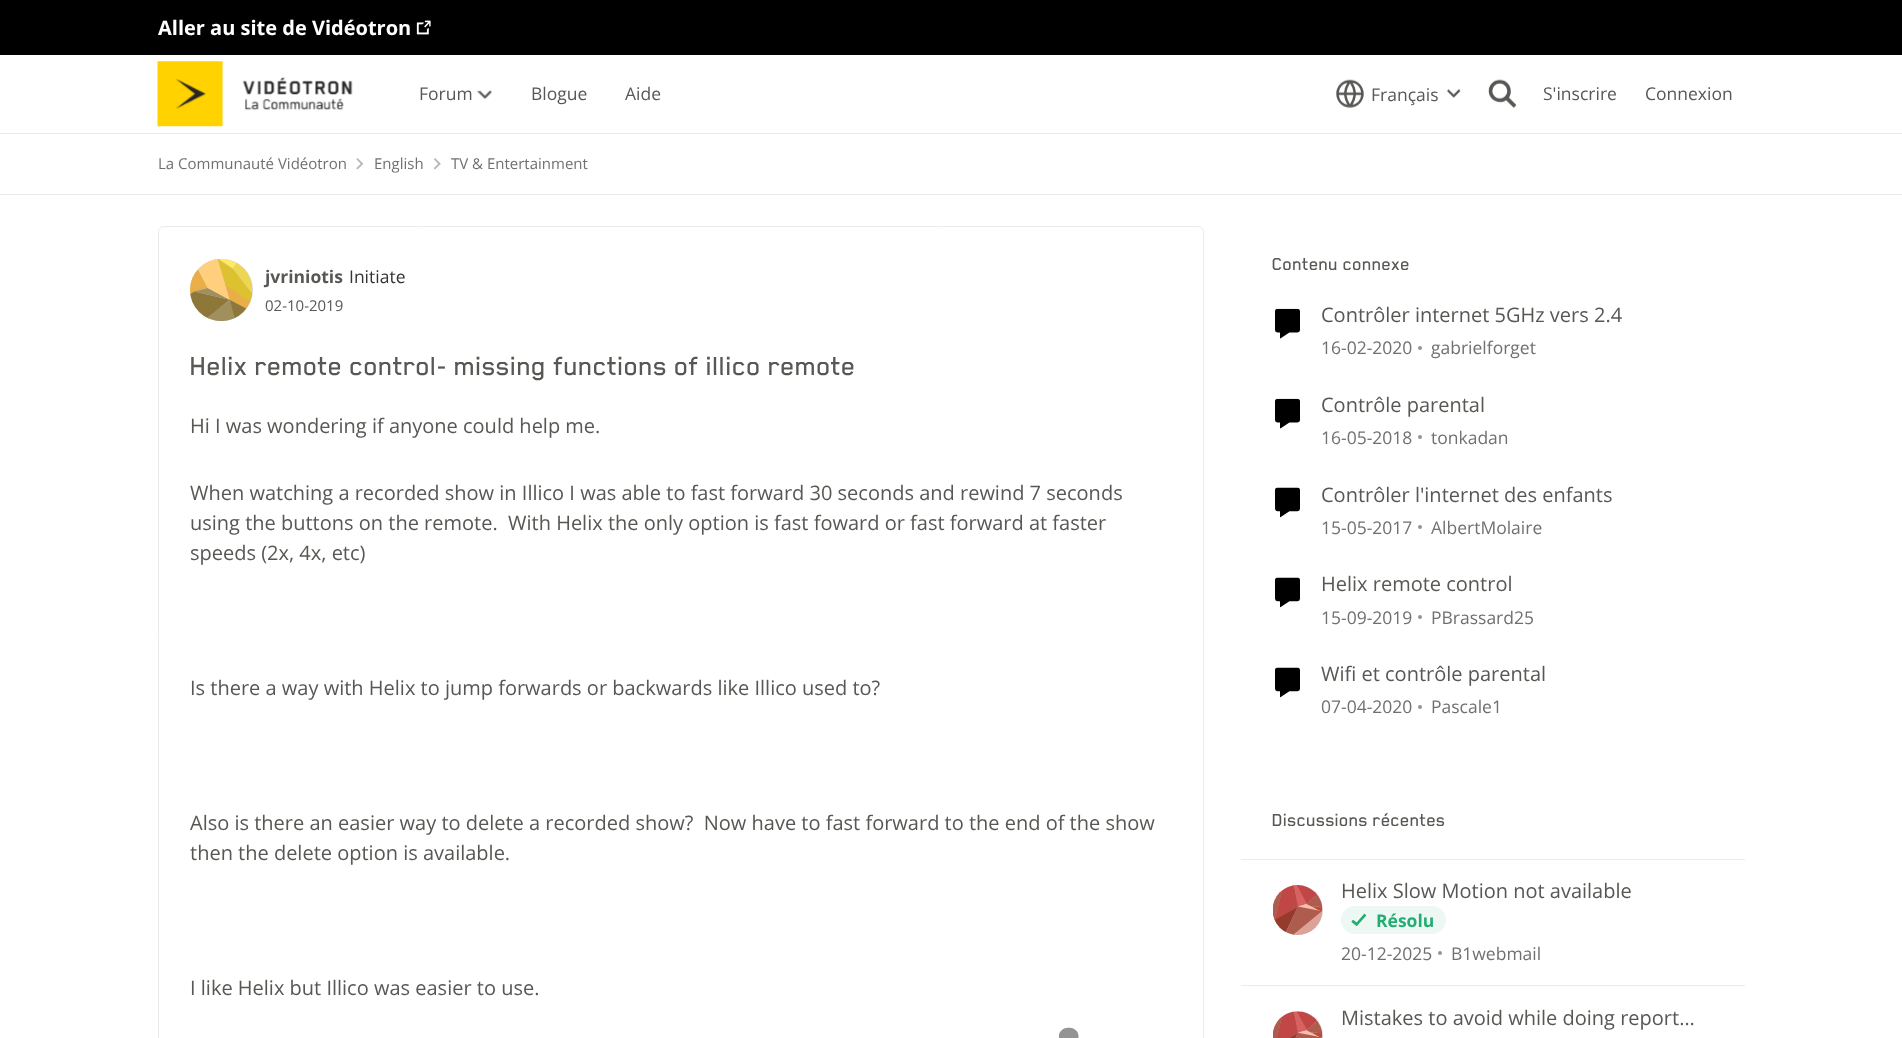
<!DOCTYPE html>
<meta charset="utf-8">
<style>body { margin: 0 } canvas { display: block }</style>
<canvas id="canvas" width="1902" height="1038"></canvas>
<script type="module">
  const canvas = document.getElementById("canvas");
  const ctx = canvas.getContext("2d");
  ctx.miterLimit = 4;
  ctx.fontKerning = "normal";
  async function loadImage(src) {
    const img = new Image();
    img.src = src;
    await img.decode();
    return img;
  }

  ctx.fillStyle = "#ffffff";
  ctx.fillRect(0, 0, 1902, 1038);
  ctx.fillStyle = "#000000";
  ctx.fillRect(0, 0, 1902, 55);
  ctx.font = "bold 20px Open Sans";
  ctx.fillStyle = "#ffffff";
  ctx.fillText("Aller au site de Vidéotron", 158, 35);
  ctx.drawImage(await loadImage("img1.png"), 416, 20, 15, 15);
  ctx.fillStyle = "#ebebeb";
  ctx.fillRect(0, 133, 1902, 1);
  ctx.drawImage(await loadImage("img2.png"), 157, 61, 196, 66);
  ctx.font = "17.5px Open Sans";
  ctx.fillStyle = "#575754";
  ctx.fillText("Forum", 419, 100);
  ctx.drawImage(await loadImage("img3.png"), 477, 90, 15, 10);
  ctx.fillText("Blogue", 531, 100);
  ctx.fillText("Aide", 625, 100);
  ctx.drawImage(await loadImage("img4.png"), 1336, 79, 28, 29);
  ctx.fillText("Français", 1371, 101);
  ctx.drawImage(await loadImage("img5.png"), 1447, 88, 14, 10);
  ctx.drawImage(await loadImage("img6.png"), 1488, 79, 29, 29);
  ctx.fillText("S'inscrire", 1543, 100);
  ctx.fillText("Connexion", 1645, 100);
  ctx.fillStyle = "#ebebeb";
  ctx.fillRect(0, 194, 1902, 1);
  ctx.font = "15px Open Sans";
  ctx.fillStyle = "#707070";
  ctx.fillText("La Communauté Vidéotron", 158, 169);
  ctx.drawImage(await loadImage("img7.png"), 356, 158, 7, 12);
  ctx.fillText("English", 374, 169);
  ctx.drawImage(await loadImage("img8.png"), 433, 158, 8, 12);
  ctx.fillText("TV & Entertainment", 451, 169);
  ctx.beginPath();
  ctx.roundRect(158.5, 226.5, 1045, 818, 5.5);
  ctx.strokeStyle = "#ebebeb";
  ctx.stroke();
  ctx.fillStyle = "#d9d9d9";
  ctx.beginPath();
  ctx.roundRect(190, 259, 63, 62, 31);
  ctx.fill();
  ctx.drawImage(await loadImage("img9.png"), 190, 259, 63, 62);
  ctx.font = "bold 17.5px Open Sans";
  ctx.fillStyle = "#575754";
  ctx.fillText("jvriniotis", 265, 283);
  ctx.font = "17.5px Open Sans";
  ctx.fillStyle = "#333333";
  ctx.fillText("Initiate", 349, 283);
  ctx.font = "15px Open Sans";
  ctx.fillStyle = "#575754";
  ctx.fillText("02-10-2019", 265, 311);
  ctx.font = "500 30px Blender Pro";
  ctx.fillText("Helix remote control- missing functions of illico remote", 190, 375);
  ctx.font = "20px Open Sans";
  ctx.fillText("Hi I was wondering if anyone could help me.", 190, 433);
  ctx.fillText("When watching a recorded show in Illico I was able to fast forward 30 seconds and rewind 7 seconds", 190, 500);
  ctx.fillText("using the buttons on the remote.  With Helix the only option is fast foward or fast forward at faster", 190, 530);
  ctx.fillText("speeds (2x, 4x, etc)", 190, 560);
  ctx.fillText("Is there a way with Helix to jump forwards or backwards like Illico used to?", 190, 695);
  ctx.fillText("Also is there an easier way to delete a recorded show?  Now have to fast forward to the end of the show", 190, 830);
  ctx.fillText("then the delete option is available.", 190, 860);
  ctx.fillText("I like Helix but Illico was easier to use.", 190, 995);
  ctx.drawImage(await loadImage("img10.png"), 1058, 1027, 21, 11);
  ctx.font = "500 20px Blender Pro";
  ctx.fillText("Contenu connexe", 1272, 270);
  ctx.drawImage(await loadImage("img11.png"), 1275, 308, 25, 31);
  ctx.font = "20px Open Sans";
  ctx.fillText("Contrôler internet 5GHz vers 2.4", 1321, 322);
  ctx.font = "17.5px Open Sans";
  ctx.fillStyle = "#707070";
  ctx.fillText("16-02-2020", 1321, 354);
  ctx.fillStyle = "#949494";
  ctx.beginPath();
  ctx.arc(1420, 348, 2, 0, Math.PI * 2);
  ctx.fill();
  ctx.fillStyle = "#707070";
  ctx.fillText("gabrielforget", 1431, 354);
  ctx.drawImage(await loadImage("img11.png"), 1275, 398, 25, 31);
  ctx.font = "20px Open Sans";
  ctx.fillStyle = "#575754";
  ctx.fillText("Contrôle parental", 1321, 412);
  ctx.font = "17.5px Open Sans";
  ctx.fillStyle = "#707070";
  ctx.fillText("16-05-2018", 1321, 444);
  ctx.fillStyle = "#949494";
  ctx.beginPath();
  ctx.arc(1420, 437, 2, 0, Math.PI * 2);
  ctx.fill();
  ctx.fillStyle = "#707070";
  ctx.fillText("tonkadan", 1431, 444);
  ctx.drawImage(await loadImage("img12.png"), 1275, 487, 25, 31);
  ctx.font = "20px Open Sans";
  ctx.fillStyle = "#575754";
  ctx.fillText("Contrôler l'internet des enfants", 1321, 502);
  ctx.font = "17.5px Open Sans";
  ctx.fillStyle = "#707070";
  ctx.fillText("15-05-2017", 1321, 534);
  ctx.fillStyle = "#949494";
  ctx.beginPath();
  ctx.arc(1420, 527, 2, 0, Math.PI * 2);
  ctx.fill();
  ctx.fillStyle = "#707070";
  ctx.fillText("AlbertMolaire", 1431, 534);
  ctx.drawImage(await loadImage("img12.png"), 1275, 577, 25, 31);
  ctx.font = "20px Open Sans";
  ctx.fillStyle = "#575754";
  ctx.fillText("Helix remote control", 1321, 591);
  ctx.font = "17.5px Open Sans";
  ctx.fillStyle = "#707070";
  ctx.fillText("15-09-2019", 1321, 624);
  ctx.fillStyle = "#949494";
  ctx.beginPath();
  ctx.arc(1420, 617, 2, 0, Math.PI * 2);
  ctx.fill();
  ctx.fillStyle = "#707070";
  ctx.fillText("PBrassard25", 1431, 624);
  ctx.drawImage(await loadImage("img12.png"), 1275, 667, 25, 31);
  ctx.font = "20px Open Sans";
  ctx.fillStyle = "#575754";
  ctx.fillText("Wifi et contrôle parental", 1321, 681);
  ctx.font = "17.5px Open Sans";
  ctx.fillStyle = "#707070";
  ctx.fillText("07-04-2020", 1321, 713);
  ctx.fillStyle = "#949494";
  ctx.beginPath();
  ctx.arc(1420, 707, 2, 0, Math.PI * 2);
  ctx.fill();
  ctx.fillStyle = "#707070";
  ctx.fillText("Pascale1", 1431, 713);
  ctx.fillStyle = "#ebebeb";
  ctx.fillRect(1241, 859, 504, 1);
  ctx.font = "500 20px Blender Pro";
  ctx.fillStyle = "#575754";
  ctx.fillText("Discussions récentes", 1272, 826);
  ctx.fillStyle = "#ebebeb";
  ctx.fillRect(1241, 985, 504, 1);
  ctx.fillStyle = "#d9d9d9";
  ctx.beginPath();
  ctx.arc(1298, 910, 25, 0, Math.PI * 2);
  ctx.fill();
  ctx.drawImage(await loadImage("img13.png"), 1273, 885, 50, 50);
  ctx.font = "20px Open Sans";
  ctx.fillStyle = "#575754";
  ctx.fillText("Helix Slow Motion not available", 1341, 898);
  ctx.fillStyle = "#edf8f4";
  ctx.beginPath();
  ctx.roundRect(1341, 906, 105, 28, 14);
  ctx.fill();
  ctx.drawImage(await loadImage("img14.png"), 1351, 913, 16, 14);
  ctx.font = "bold 17.5px Open Sans";
  ctx.fillStyle = "#24ad72";
  ctx.fillText("Résolu", 1376, 927);
  ctx.font = "17.5px Open Sans";
  ctx.fillStyle = "#707070";
  ctx.fillText("20-12-2025", 1341, 960);
  ctx.fillStyle = "#949494";
  ctx.beginPath();
  ctx.arc(1440, 953, 2, 0, Math.PI * 2);
  ctx.fill();
  ctx.fillStyle = "#707070";
  ctx.fillText("B1webmail", 1451, 960);
  ctx.fillStyle = "#d9d9d9";
  ctx.beginPath();
  ctx.arc(1298, 1036, 25, 0, Math.PI * 2);
  ctx.fill();
  ctx.drawImage(await loadImage("img15.png"), 1273, 1011, 50, 27);
  ctx.font = "20px Open Sans";
  ctx.fillStyle = "#575754";
  ctx.fillText("Mistakes to avoid while doing report…", 1341, 1025);
</script>
